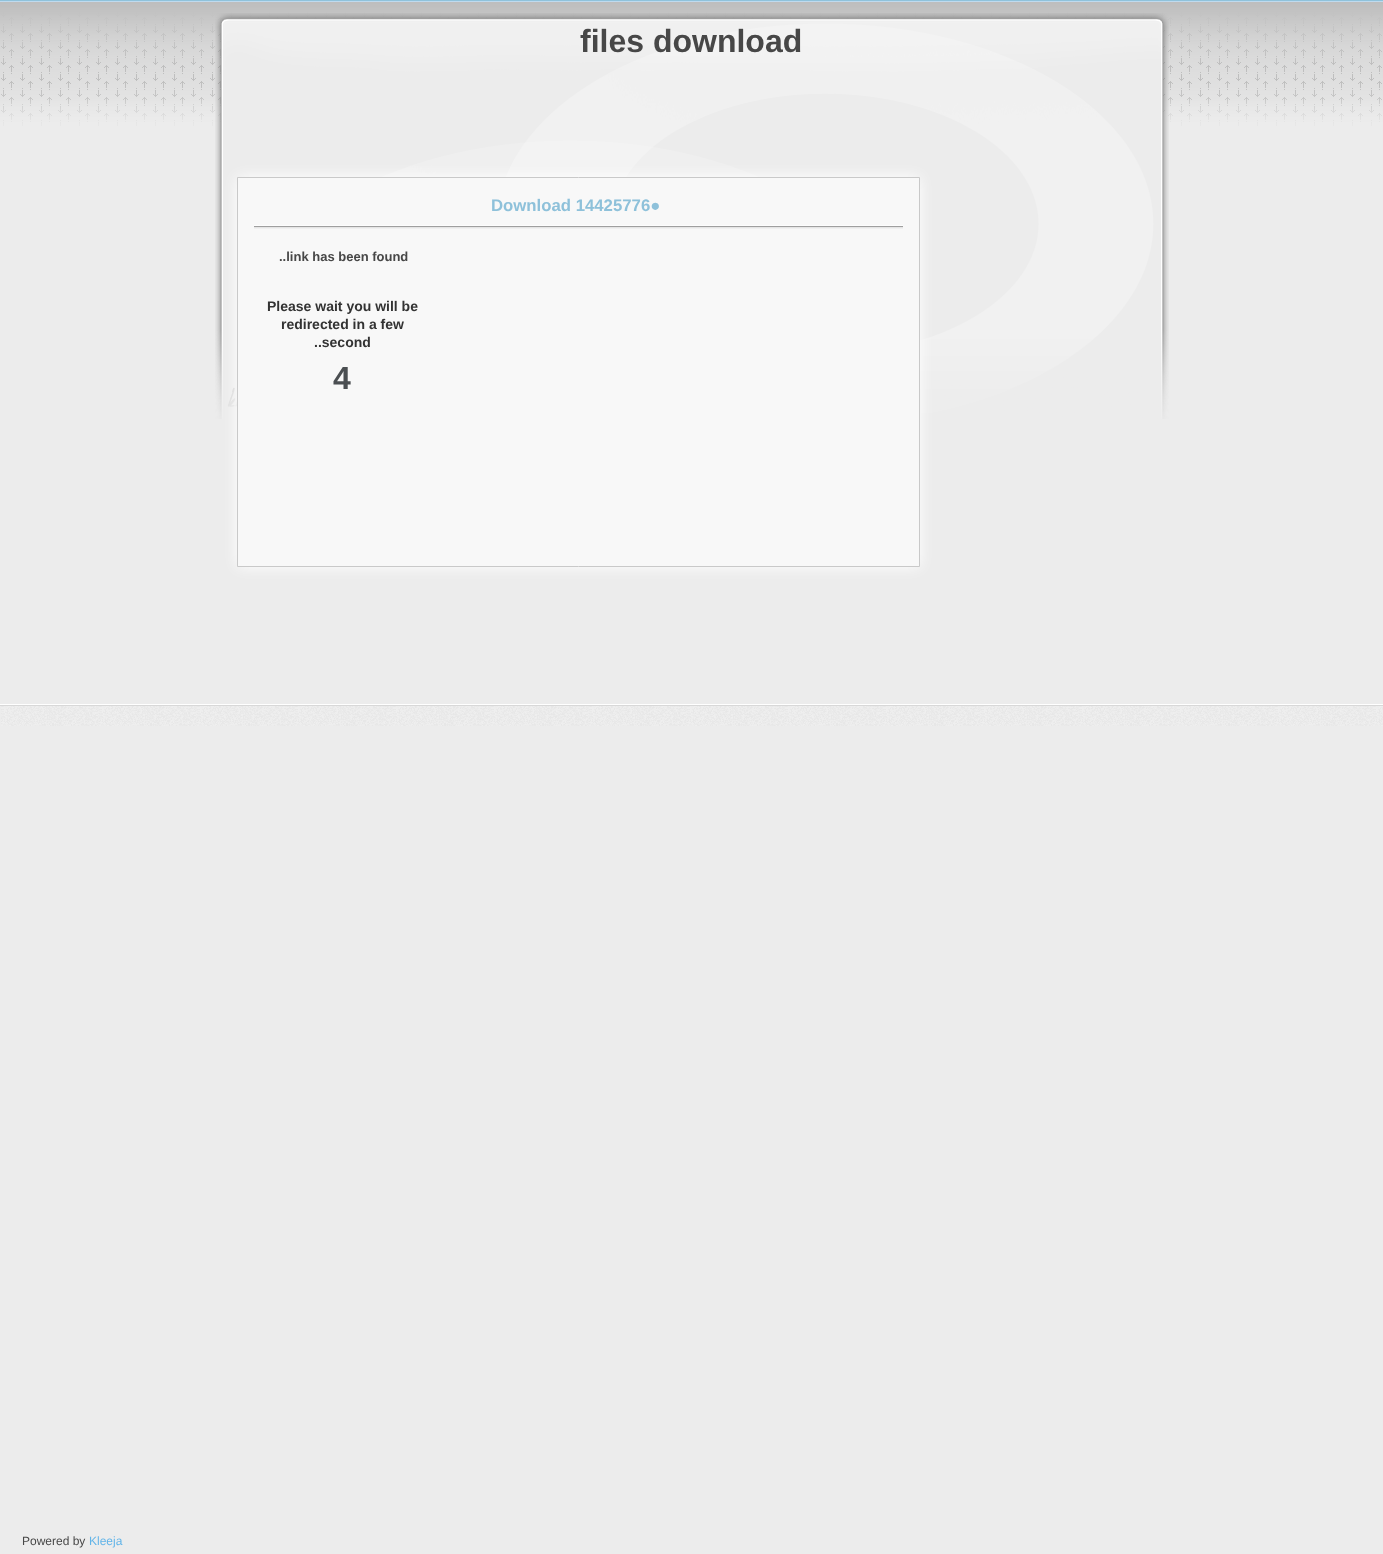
<!DOCTYPE html>
<meta charset="utf-8">
<style>body { margin: 0 } canvas { display: block }</style>
<canvas id="canvas" width="1383" height="1554"></canvas>
<script type="module">
  const canvas = document.getElementById("canvas");
  const ctx = canvas.getContext("2d");
  ctx.miterLimit = 4;
  ctx.fontKerning = "normal";
  async function loadImage(src) {
    const img = new Image();
    img.src = src;
    await img.decode();
    return img;
  }

  ctx.fillStyle = "#ececec";
  ctx.fillRect(0, 0, 1383, 1554);
  ctx.drawImage(await loadImage("img1.png"), 0, 0, 1383, 126);
  ctx.drawImage(await loadImage("img2.png"), 215, 13, 954, 406);
  ctx.font = "bold 32px Liberation Sans";
  ctx.fillStyle = "#474747";
  ctx.fillText("files download", 580, 52);
  ctx.fillStyle = "#ffffff";
  ctx.filter = "blur(7.5px)";
  ctx.beginPath();
  ctx.rect(237, 177, 683, 390);
  ctx.fill();
  ctx.filter = "none";
  ctx.fillStyle = "#f8f8f8";
  ctx.beginPath();
  ctx.rect(237.5, 177.5, 682, 389);
  ctx.fill();
  ctx.strokeStyle = "#c9c9c9";
  ctx.stroke();
  ctx.font = "bold 16.75px Liberation Sans";
  ctx.fillStyle = "#8ec1da";
  ctx.fillText("Download 14425776●", 491, 211);
  ctx.drawImage(await loadImage("img3.png"), 254, 225, 649, 4);
  ctx.font = "bold 13px Liberation Sans";
  ctx.fillStyle = "#474747";
  ctx.fillText("..link has been found", 279, 261);
  ctx.font = "bold 14px Liberation Sans";
  ctx.fillStyle = "#333333";
  ctx.fillText("Please wait you will be", 267, 311);
  ctx.fillText("redirected in a few", 281, 329);
  ctx.fillText("..second", 314, 347);
  ctx.font = "bold 32px Liberation Sans";
  ctx.fillStyle = "#4b4f52";
  ctx.fillText("4", 333, 389);
  ctx.fillStyle = "#ffffff";
  ctx.fillRect(0, 704, 1383, 1);
  ctx.drawImage(await loadImage("img4.png"), 1, 706, 1382, 20);
  ctx.fillStyle = "#d8d8d8";
  ctx.fillRect(0, 705, 1383, 1);
  ctx.font = "12px Liberation Sans";
  ctx.fillStyle = "#474747";
  ctx.fillText("Powered by", 22, 1545);
  ctx.fillStyle = "#62b4e8";
  ctx.fillText("Kleeja", 89, 1545);
</script>
